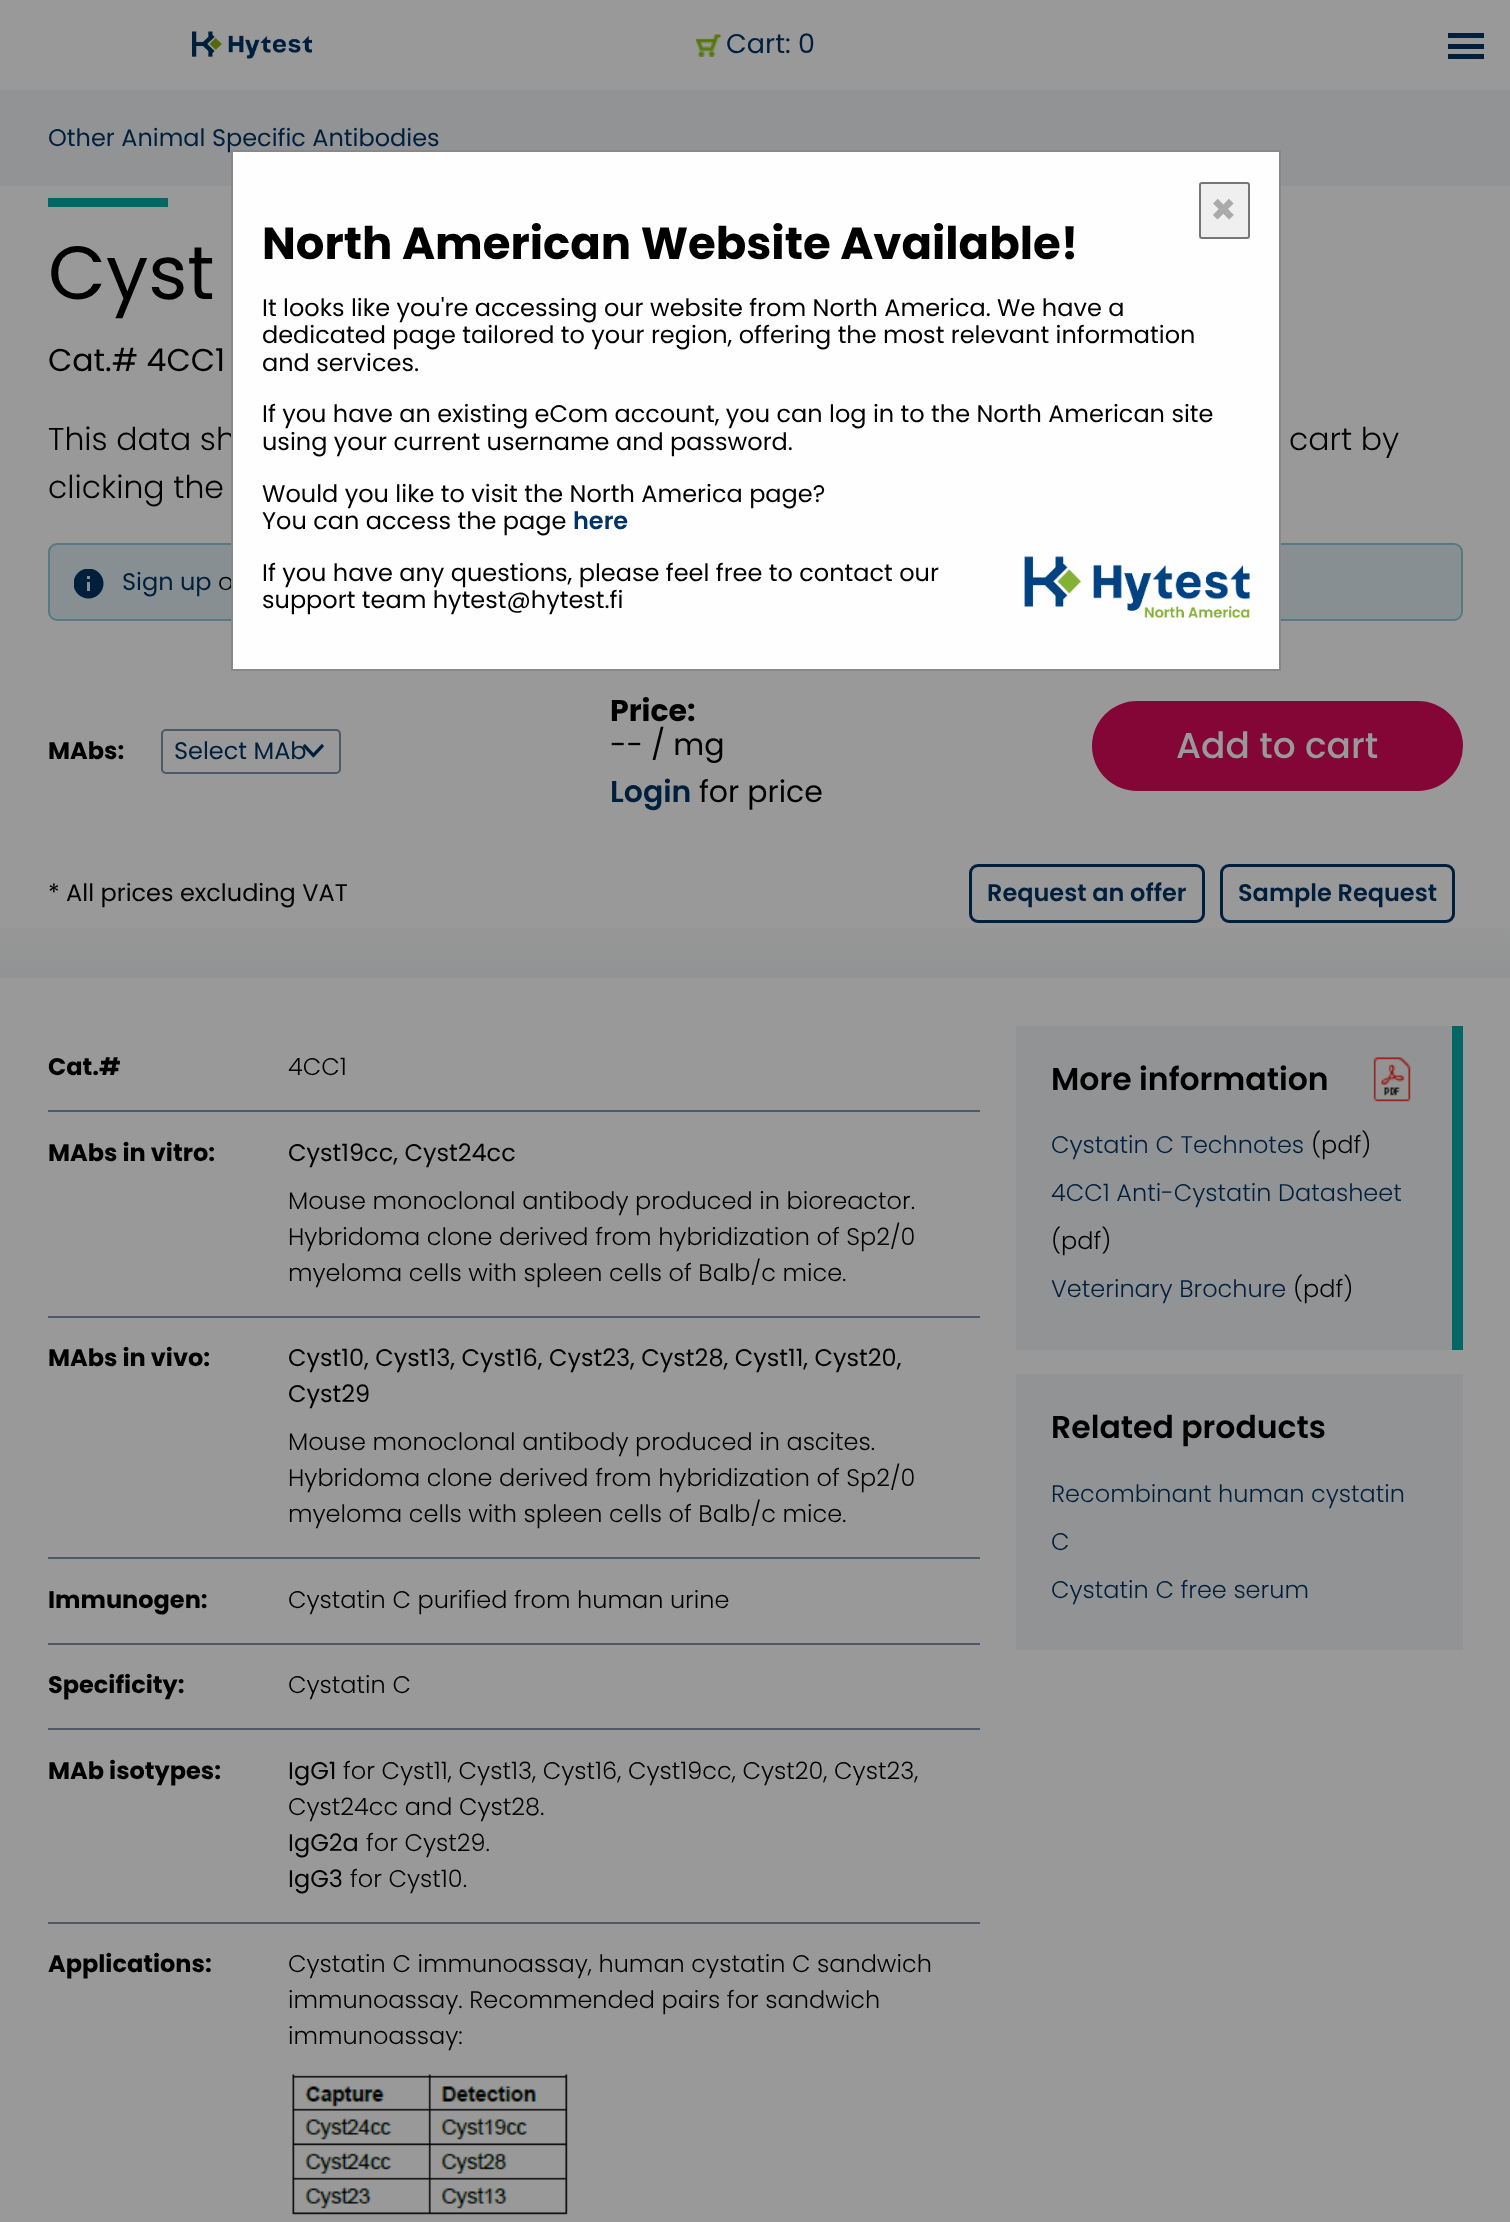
<!DOCTYPE html>
<meta charset="utf-8">
<style>body { margin: 0 } canvas { display: block }</style>
<canvas id="canvas" width="1510" height="2222"></canvas>
<script type="module">
  const canvas = document.getElementById("canvas");
  const ctx = canvas.getContext("2d");
  ctx.miterLimit = 4;
  ctx.fontKerning = "normal";
  async function loadImage(src) {
    const img = new Image();
    img.src = src;
    await img.decode();
    return img;
  }
  let gradient;

  ctx.fillStyle = "#999999";
  ctx.fillRect(0, 0, 1510, 2222);
  ctx.drawImage(await loadImage("img1.png"), 192, 31, 120, 28);
  ctx.drawImage(await loadImage("img2.png"), 696, 34, 26, 23);
  ctx.font = "27px Poppins";
  ctx.fillStyle = "#001f3d";
  ctx.fillText("Cart: 0", 726, 53);
  ctx.fillRect(1448, 33, 36, 5);
  ctx.fillRect(1448, 44, 36, 5);
  ctx.fillRect(1448, 54, 36, 5);
  ctx.fillStyle = "#929394";
  ctx.fillRect(0, 90, 1510, 96);
  ctx.font = "24px Poppins";
  ctx.fillStyle = "#001f3d";
  ctx.fillText("Other Animal Specific Antibodies", 48, 146);
  gradient = ctx.createLinearGradient(755, 186, 755, 978);
  gradient.addColorStop(0.86, "#999999");
  gradient.addColorStop(0.93, "#979797");
  gradient.addColorStop(1, "#929394");
  ctx.fillStyle = gradient;
  ctx.fillRect(0, 928, 1510, 50);
  ctx.fillStyle = "#006765";
  ctx.fillRect(48, 198, 120, 9);
  ctx.font = "75px Poppins";
  ctx.fillStyle = "#000000";
  ctx.fillText("Cyst", 48, 299);
  ctx.font = "31.5px Poppins";
  ctx.fillText("Cat.# 4CC1", 48, 371);
  ctx.font = "300 31.5px Poppins";
  ctx.fillText("This data sh", 48, 450);
  ctx.fillText("cart by", 1289, 450);
  ctx.fillText("clicking the", 48, 498);
  ctx.fillStyle = "#888f92";
  ctx.beginPath();
  ctx.roundRect(49, 544, 1413, 76, 8);
  ctx.fill();
  ctx.strokeStyle = "#577980";
  ctx.lineWidth = 2;
  ctx.stroke();
  ctx.drawImage(await loadImage("img3.png"), 74, 569, 30, 30);
  ctx.font = "24px Poppins";
  ctx.fillStyle = "#001f3d";
  ctx.fillText("Sign up", 122, 590);
  ctx.font = "300 24px Poppins";
  ctx.fillStyle = "#000000";
  ctx.fillText("o", 218, 590);
  ctx.font = "bold 24px Poppins";
  ctx.fillText("MAbs:", 48, 759);
  ctx.drawImage(await loadImage("img4.png"), 302, 744, 22, 14);
  ctx.beginPath();
  ctx.roundRect(162, 730, 178, 43, 4);
  ctx.strokeStyle = "#4d5966";
  ctx.stroke();
  ctx.font = "24px Poppins";
  ctx.fillStyle = "#001f3d";
  ctx.fillText("Select MAb", 174, 759);
  ctx.font = "bold 30px Poppins";
  ctx.fillStyle = "#000000";
  ctx.fillText("Price:", 610, 721);
  ctx.font = "30px Poppins";
  ctx.fillText("-- / mg", 610, 755);
  ctx.font = "600 30px Poppins";
  ctx.fillStyle = "#001f3d";
  ctx.fillText("Login", 610, 802);
  ctx.font = "30px Poppins";
  ctx.fillStyle = "#000000";
  ctx.fillText("for price", 699, 802);
  ctx.fillStyle = "#830637";
  ctx.beginPath();
  ctx.roundRect(1092, 701, 371, 90, 45);
  ctx.fill();
  ctx.font = "500 36px Poppins";
  ctx.fillStyle = "#999999";
  ctx.fillText("Add to cart", 1176, 758);
  ctx.font = "24px Poppins";
  ctx.fillStyle = "#000000";
  ctx.fillText("* All prices excluding VAT", 48, 901);
  ctx.beginPath();
  ctx.roundRect(970.5, 865.5, 233, 56, 7.5);
  ctx.strokeStyle = "#001f3d";
  ctx.lineWidth = 3;
  ctx.stroke();
  ctx.font = "600 24px Poppins";
  ctx.fillStyle = "#001f3d";
  ctx.fillText("Request an offer", 987, 901);
  ctx.beginPath();
  ctx.roundRect(1221.5, 865.5, 232, 56, 7.5);
  ctx.stroke();
  ctx.fillText("Sample Request", 1238, 901);
  ctx.fillStyle = "#4d5966";
  ctx.fillRect(48, 1110, 932, 2);
  ctx.font = "bold 24px Poppins";
  ctx.fillStyle = "#000000";
  ctx.fillText("Cat.#", 48, 1075);
  ctx.font = "300 24px Poppins";
  ctx.fillText("4CC1", 288, 1075);
  ctx.fillStyle = "#4d5966";
  ctx.fillRect(48, 1316, 932, 2);
  ctx.font = "bold 24px Poppins";
  ctx.fillStyle = "#000000";
  ctx.fillText("MAbs in vitro:", 48, 1161);
  ctx.font = "24px Poppins";
  ctx.fillText("Cyst19cc, Cyst24cc", 288, 1161);
  ctx.font = "300 24px Poppins";
  ctx.fillText("Mouse monoclonal antibody produced in bioreactor.", 288, 1209);
  ctx.fillText("Hybridoma clone derived from hybridization of Sp2/0", 288, 1245);
  ctx.fillText("myeloma cells with spleen cells of Balb/c mice.", 288, 1281);
  ctx.fillStyle = "#4d5966";
  ctx.fillRect(48, 1557, 932, 2);
  ctx.font = "bold 24px Poppins";
  ctx.fillStyle = "#000000";
  ctx.fillText("MAbs in vivo:", 48, 1366);
  ctx.font = "24px Poppins";
  ctx.fillText("Cyst10, Cyst13, Cyst16, Cyst23, Cyst28, Cyst11, Cyst20,", 288, 1366);
  ctx.fillText("Cyst29", 288, 1402);
  ctx.font = "300 24px Poppins";
  ctx.fillText("Mouse monoclonal antibody produced in ascites.", 288, 1450);
  ctx.fillText("Hybridoma clone derived from hybridization of Sp2/0", 288, 1486);
  ctx.fillText("myeloma cells with spleen cells of Balb/c mice.", 288, 1522);
  ctx.fillStyle = "#4d5966";
  ctx.fillRect(48, 1643, 932, 2);
  ctx.font = "bold 24px Poppins";
  ctx.fillStyle = "#000000";
  ctx.fillText("Immunogen:", 48, 1608);
  ctx.font = "300 24px Poppins";
  ctx.fillText("Cystatin C purified from human urine", 288, 1608);
  ctx.fillStyle = "#4d5966";
  ctx.fillRect(48, 1728, 932, 2);
  ctx.font = "bold 24px Poppins";
  ctx.fillStyle = "#000000";
  ctx.fillText("Specificity:", 48, 1693);
  ctx.font = "300 24px Poppins";
  ctx.fillText("Cystatin C", 288, 1693);
  ctx.fillStyle = "#4d5966";
  ctx.fillRect(48, 1922, 932, 2);
  ctx.font = "bold 24px Poppins";
  ctx.fillStyle = "#000000";
  ctx.fillText("MAb isotypes:", 48, 1779);
  ctx.font = "24px Poppins";
  ctx.fillText("IgG1", 288, 1779);
  ctx.font = "300 24px Poppins";
  ctx.fillText("for Cyst11, Cyst13, Cyst16, Cyst19cc, Cyst20, Cyst23,", 343, 1779);
  ctx.fillText("Cyst24cc and Cyst28.", 288, 1815);
  ctx.font = "24px Poppins";
  ctx.fillText("IgG2a", 288, 1851);
  ctx.font = "300 24px Poppins";
  ctx.fillText("for Cyst29.", 366, 1851);
  ctx.font = "24px Poppins";
  ctx.fillText("IgG3", 288, 1887);
  ctx.font = "300 24px Poppins";
  ctx.fillText("for Cyst10.", 350, 1887);
  ctx.font = "bold 24px Poppins";
  ctx.fillText("Applications:", 48, 1972);
  ctx.font = "300 24px Poppins";
  ctx.fillText("Cystatin C immunoassay, human cystatin C sandwich", 288, 1972);
  ctx.fillText("immunoassay. Recommended pairs for sandwich", 288, 2008);
  ctx.fillText("immunoassay:", 288, 2044);
  ctx.drawImage(await loadImage("img5.png"), 292, 2074, 276, 141);
  ctx.fillStyle = "#929394";
  ctx.fillRect(1016, 1026, 436, 324);
  ctx.fillStyle = "#006765";
  ctx.fillRect(1452, 1026, 11, 324);
  ctx.font = "600 31.5px Poppins";
  ctx.fillStyle = "#000000";
  ctx.fillText("More information", 1051, 1090);
  ctx.drawImage(await loadImage("img6.png"), 1373, 1057, 38, 45);
  ctx.font = "300 24px Poppins";
  ctx.fillStyle = "#001f3d";
  ctx.fillText("Cystatin C Technotes", 1051, 1153);
  ctx.fillStyle = "#000000";
  ctx.fillText("(pdf)", 1311, 1153);
  ctx.fillStyle = "#001f3d";
  ctx.fillText("4CC1 Anti-Cystatin Datasheet", 1051, 1201);
  ctx.fillStyle = "#000000";
  ctx.fillText("(pdf)", 1051, 1249);
  ctx.fillStyle = "#001f3d";
  ctx.fillText("Veterinary Brochure", 1051, 1297);
  ctx.fillStyle = "#000000";
  ctx.fillText("(pdf)", 1293, 1297);
  ctx.fillStyle = "#929394";
  ctx.fillRect(1016, 1374, 447, 276);
  ctx.font = "600 31.5px Poppins";
  ctx.fillStyle = "#000000";
  ctx.fillText("Related products", 1051, 1438);
  ctx.font = "300 24px Poppins";
  ctx.fillStyle = "#001f3d";
  ctx.fillText("Recombinant human cystatin", 1051, 1502);
  ctx.fillText("C", 1051, 1550);
  ctx.fillText("Cystatin C free serum", 1051, 1598);
  ctx.fillStyle = "#fefefe";
  ctx.beginPath();
  ctx.rect(232, 151, 1048, 519);
  ctx.fill();
  ctx.strokeStyle = "#888888";
  ctx.lineWidth = 2;
  ctx.stroke();
  ctx.fillStyle = "#efefef";
  ctx.beginPath();
  ctx.roundRect(1200, 183, 49, 55, 2);
  ctx.fill();
  ctx.strokeStyle = "#767676";
  ctx.stroke();
  ctx.font = "bold 42px Poppins";
  ctx.fillStyle = "#aaaaaa";
  ctx.fillText("×", 1210, 224);
  ctx.font = "bold 45px Poppins";
  ctx.fillStyle = "#000000";
  ctx.fillText("North American Website Available!", 262, 259);
  ctx.font = "24px Poppins";
  ctx.fillText("It looks like you're accessing our website from North America. We have a", 262, 316);
  ctx.fillText("dedicated page tailored to your region, offering the most relevant information", 262, 343);
  ctx.fillText("and services.", 262, 371);
  ctx.fillText("If you have an existing eCom account, you can log in to the North American site", 262, 422);
  ctx.fillText("using your current username and password.", 262, 450);
  ctx.fillText("Would you like to visit the North America page?", 262, 502);
  ctx.fillText("You can access the page", 262, 529);
  ctx.font = "600 24px Poppins";
  ctx.fillStyle = "#003366";
  ctx.fillText("here", 573, 529);
  ctx.font = "24px Poppins";
  ctx.fillStyle = "#000000";
  ctx.fillText("If you have any questions, please feel free to contact our", 262, 581);
  ctx.fillText("support team hytest@hytest.fi", 262, 608);
  ctx.drawImage(await loadImage("img7.png"), 1024, 556, 226, 62);
</script>
